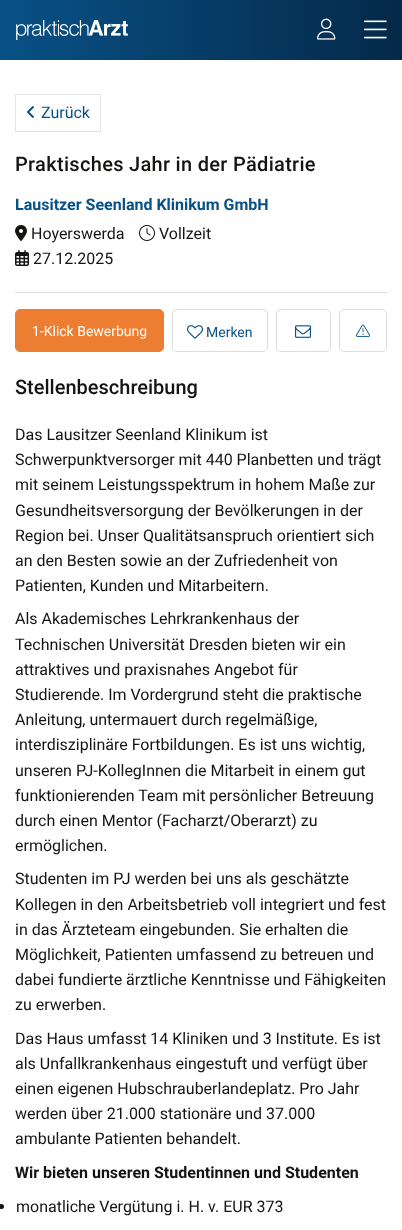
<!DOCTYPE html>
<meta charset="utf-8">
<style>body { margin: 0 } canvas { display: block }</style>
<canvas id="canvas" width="402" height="1230"></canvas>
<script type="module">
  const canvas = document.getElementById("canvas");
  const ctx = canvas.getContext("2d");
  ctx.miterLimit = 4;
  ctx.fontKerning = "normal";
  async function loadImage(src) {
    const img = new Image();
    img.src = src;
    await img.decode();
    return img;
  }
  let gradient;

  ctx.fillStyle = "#ffffff";
  ctx.fillRect(0, 0, 402, 1230);
  gradient = ctx.createLinearGradient(402, 30, 0, 30);
  gradient.addColorStop(0, "#052949");
  gradient.addColorStop(1, "#085186");
  ctx.fillStyle = gradient;
  ctx.fillRect(0, 0, 402, 60);
  ctx.drawImage(await loadImage("img1.png"), 16, 20, 112, 20);
  ctx.drawImage(await loadImage("img2.png"), 317, 18, 19, 22);
  ctx.drawImage(await loadImage("img3.png"), 364, 20, 23, 19);
  ctx.strokeStyle = "#e3e5e8";
  ctx.strokeRect(15.5, 94.5, 85, 37);
  ctx.drawImage(await loadImage("img4.png"), 27, 106, 7, 12);
  ctx.font = "16px Roboto";
  ctx.fillStyle = "#085186";
  ctx.fillText("Zurück", 41, 118);
  ctx.letterSpacing = "0.3px";
  ctx.font = "500 20px Roboto";
  ctx.fillStyle = "#141412";
  ctx.fillText("Praktisches Jahr in der Pädiatrie", 15, 171);
  ctx.fillStyle = "#dedede";
  ctx.fillRect(15, 292, 372, 1);
  ctx.letterSpacing = "0px";
  ctx.font = "bold 16px Roboto";
  ctx.fillStyle = "#085186";
  ctx.fillText("Lausitzer Seenland Klinikum GmbH", 15, 210);
  ctx.drawImage(await loadImage("img5.png"), 15, 225, 12, 16);
  ctx.font = "16px Roboto";
  ctx.fillStyle = "#141412";
  ctx.fillText("Hoyerswerda", 31, 239);
  ctx.drawImage(await loadImage("img6.png"), 139, 225, 16, 16);
  ctx.fillText("Vollzeit", 159, 239);
  ctx.drawImage(await loadImage("img7.png"), 15, 250, 14, 16);
  ctx.fillText("27.12.2025", 33, 264);
  ctx.fillStyle = "#ed7d31";
  ctx.beginPath();
  ctx.roundRect(15.5, 309.5, 148, 42, 4.5);
  ctx.fill();
  ctx.strokeStyle = "#ed7d31";
  ctx.stroke();
  ctx.font = "14px Roboto";
  ctx.fillStyle = "#ffffff";
  ctx.fillText("1-Klick Bewerbung", 32, 336);
  ctx.beginPath();
  ctx.roundRect(172.5, 309.5, 95, 42, 4.5);
  ctx.strokeStyle = "#dddddd";
  ctx.stroke();
  ctx.drawImage(await loadImage("img8.png"), 187, 325, 16, 14);
  ctx.fillStyle = "#085186";
  ctx.fillText("Merken", 206, 337);
  ctx.beginPath();
  ctx.roundRect(276.5, 309.5, 54, 42, 4.5);
  ctx.stroke();
  ctx.drawImage(await loadImage("img9.png"), 295, 325, 16, 13);
  ctx.beginPath();
  ctx.roundRect(339.5, 309.5, 47, 42, 4.5);
  ctx.stroke();
  ctx.drawImage(await loadImage("img10.png"), 356, 324, 14, 13);
  ctx.font = "500 20px Roboto";
  ctx.fillStyle = "#141412";
  ctx.fillText("Stellenbeschreibung", 15, 394);
  ctx.font = "16px Roboto";
  ctx.fillText("Das Lausitzer Seenland Klinikum ist", 15, 440);
  ctx.fillText("Schwerpunktversorger mit 440 Planbetten und trägt", 15, 465);
  ctx.fillText("mit seinem Leistungsspektrum in hohem Maße zur", 15, 490);
  ctx.fillText("Gesundheitsversorgung der Bevölkerungen in der", 15, 516);
  ctx.fillText("Region bei. Unser Qualitätsanspruch orientiert sich", 15, 541);
  ctx.fillText("an den Besten sowie an der Zufriedenheit von", 15, 566);
  ctx.fillText("Patienten, Kunden und Mitarbeitern.", 15, 591);
  ctx.fillText("Als Akademisches Lehrkrankenhaus der", 15, 624);
  ctx.fillText("Technischen Universität Dresden bieten wir ein", 15, 650);
  ctx.fillText("attraktives und praxisnahes Angebot für", 15, 675);
  ctx.fillText("Studierende. Im Vordergrund steht die praktische", 15, 700);
  ctx.fillText("Anleitung, untermauert durch regelmäßige,", 15, 725);
  ctx.fillText("interdisziplinäre Fortbildungen. Es ist uns wichtig,", 15, 750);
  ctx.fillText("unseren PJ-KollegInnen die Mitarbeit in einem gut", 15, 776);
  ctx.fillText("funktionierenden Team mit persönlicher Betreuung", 15, 801);
  ctx.fillText("durch einen Mentor (Facharzt/Oberarzt) zu", 15, 826);
  ctx.fillText("ermöglichen.", 15, 851);
  ctx.fillText("Studenten im PJ werden bei uns als geschätzte", 15, 884);
  ctx.fillText("Kollegen in den Arbeitsbetrieb voll integriert und fest", 15, 910);
  ctx.fillText("in das Ärzteteam eingebunden. Sie erhalten die", 15, 935);
  ctx.fillText("Möglichkeit, Patienten umfassend zu betreuen und", 15, 960);
  ctx.fillText("dabei fundierte ärztliche Kenntnisse und Fähigkeiten", 15, 985);
  ctx.fillText("zu erwerben.", 15, 1010);
  ctx.fillText("Das Haus umfasst 14 Kliniken und 3 Institute. Es ist", 15, 1044);
  ctx.fillText("als Unfallkrankenhaus eingestuft und verfügt über", 15, 1069);
  ctx.fillText("einen eigenen Hubschrauberlandeplatz. Pro Jahr", 15, 1094);
  ctx.fillText("werden über 21.000 stationäre und 37.000", 15, 1119);
  ctx.fillText("ambulante Patienten behandelt.", 15, 1144);
  ctx.font = "bold 16px Roboto";
  ctx.fillText("Wir bieten unseren Studentinnen und Studenten", 15, 1178);
  ctx.beginPath();
  ctx.arc(1.5, 1206.5, 2.5, 0, Math.PI * 2);
  ctx.fill();
  ctx.font = "16px Roboto";
  ctx.fillText("monatliche Vergütung i. H. v. EUR 373", 16, 1212);
</script>
